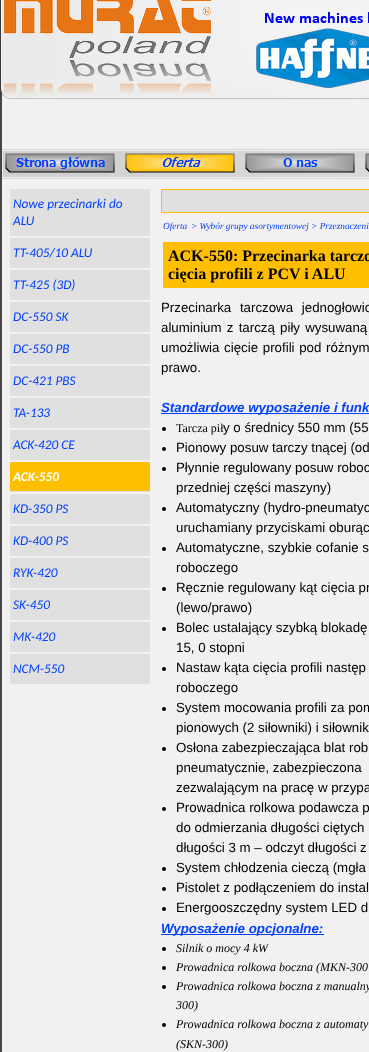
<!DOCTYPE html>
<meta charset="utf-8">
<style>body { margin: 0 } canvas { display: block }</style>
<canvas id="canvas" width="369" height="1052"></canvas>
<script type="module">
  const canvas = document.getElementById("canvas");
  const ctx = canvas.getContext("2d");
  ctx.miterLimit = 4;
  ctx.fontKerning = "normal";
  async function loadImage(src) {
    const img = new Image();
    img.src = src;
    await img.decode();
    return img;
  }

  ctx.fillStyle = "#474747";
  ctx.fillRect(0, 0, 369, 1052);
  ctx.drawImage(await loadImage("img1.png"), 0, 0, 369, 150);
  ctx.drawImage(await loadImage("img2.png"), 265, 12, 104, 11);
  ctx.drawImage(await loadImage("img3.png"), 256, 27, 113, 61);
  ctx.drawImage(await loadImage("img4.png"), 1, 150, 368, 29);
  ctx.drawImage(await loadImage("img5.png"), 5, 153, 110, 20);
  ctx.drawImage(await loadImage("img6.png"), 125, 153, 110, 20);
  ctx.drawImage(await loadImage("img7.png"), 245, 153, 110, 20);
  ctx.drawImage(await loadImage("img8.png"), 365, 153, 4, 19);
  ctx.fillStyle = "#f2f0f1";
  ctx.fillRect(2, 179, 367, 873);
  ctx.fillStyle = "#e0e0e0";
  ctx.fillRect(10, 189, 140, 47);
  ctx.font = "italic 13.3px Carlito";
  ctx.fillStyle = "#0040ff";
  ctx.fillText("Nowe przecinarki do", 13, 208);
  ctx.fillText("ALU", 13, 225);
  ctx.fillStyle = "#e0e0e0";
  ctx.fillRect(10, 238, 140, 30);
  ctx.fillStyle = "#0040ff";
  ctx.fillText("TT-405/10 ALU", 13, 257);
  ctx.fillStyle = "#e0e0e0";
  ctx.fillRect(10, 270, 140, 30);
  ctx.fillStyle = "#0040ff";
  ctx.fillText("TT-425 (3D)", 13, 289);
  ctx.fillStyle = "#e0e0e0";
  ctx.fillRect(10, 302, 140, 30);
  ctx.fillStyle = "#0040ff";
  ctx.fillText("DC-550 SK", 13, 321);
  ctx.fillStyle = "#e0e0e0";
  ctx.fillRect(10, 334, 140, 30);
  ctx.fillStyle = "#0040ff";
  ctx.fillText("DC-550 PB", 13, 353);
  ctx.fillStyle = "#e0e0e0";
  ctx.fillRect(10, 366, 140, 30);
  ctx.fillStyle = "#0040ff";
  ctx.fillText("DC-421 PBS", 13, 385);
  ctx.fillStyle = "#e0e0e0";
  ctx.fillRect(10, 398, 140, 30);
  ctx.fillStyle = "#0040ff";
  ctx.fillText("TA-133", 13, 417);
  ctx.fillStyle = "#e0e0e0";
  ctx.fillRect(10, 430, 140, 30);
  ctx.fillStyle = "#0040ff";
  ctx.fillText("ACK-420 CE", 13, 449);
  ctx.fillStyle = "#ffbf00";
  ctx.fillRect(10, 462, 140, 29);
  ctx.fillStyle = "#e0e0e0";
  ctx.fillRect(10, 491, 140, 1);
  ctx.font = "italic bold 13.3px Carlito";
  ctx.fillStyle = "#ffffff";
  ctx.fillText("ACK-550", 13, 481);
  ctx.fillStyle = "#e0e0e0";
  ctx.fillRect(10, 494, 140, 30);
  ctx.font = "italic 13.3px Carlito";
  ctx.fillStyle = "#0040ff";
  ctx.fillText("KD-350 PS", 13, 513);
  ctx.fillStyle = "#e0e0e0";
  ctx.fillRect(10, 526, 140, 30);
  ctx.fillStyle = "#0040ff";
  ctx.fillText("KD-400 PS", 13, 545);
  ctx.fillStyle = "#e0e0e0";
  ctx.fillRect(10, 558, 140, 30);
  ctx.fillStyle = "#0040ff";
  ctx.fillText("RYK-420", 13, 577);
  ctx.fillStyle = "#e0e0e0";
  ctx.fillRect(10, 590, 140, 30);
  ctx.fillStyle = "#0040ff";
  ctx.fillText("SK-450", 13, 609);
  ctx.fillStyle = "#e0e0e0";
  ctx.fillRect(10, 622, 140, 30);
  ctx.fillStyle = "#0040ff";
  ctx.fillText("MK-420", 13, 641);
  ctx.fillStyle = "#e0e0e0";
  ctx.fillRect(10, 654, 140, 30);
  ctx.fillStyle = "#0040ff";
  ctx.fillText("NCM-550", 13, 673);
  ctx.fillStyle = "#e0e0e0";
  ctx.beginPath();
  ctx.rect(161.5, 189.5, 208, 23);
  ctx.fill();
  ctx.strokeStyle = "#ffbf00";
  ctx.stroke();
  ctx.font = "italic 9.3px Liberation Serif";
  ctx.fillStyle = "#0040ff";
  ctx.fillText("Oferta", 163, 229);
  ctx.fillText("> Wybór grupy asortymentowej > Przeznaczeni", 191, 229);
  ctx.fillStyle = "#ffbf00";
  ctx.fillRect(163, 242, 206, 46);
  ctx.font = "bold 16px Liberation Serif";
  ctx.fillStyle = "#000000";
  ctx.fillText("ACK-550: Przecinarka tarczo", 168, 261);
  ctx.fillText("cięcia profili z PCV i ALU", 168, 279);
  ctx.wordSpacing = "5px";
  ctx.font = "13.3px Liberation Sans";
  ctx.fillText("Przecinarka tarczowa jednogłowic", 161, 312);
  ctx.wordSpacing = "1.5px";
  ctx.fillText("aluminium z tarczą piły wysuwaną", 161, 332);
  ctx.wordSpacing = "1px";
  ctx.fillText("umożliwia cięcie profili pod różnym", 161, 352);
  ctx.wordSpacing = "0px";
  ctx.fillText("prawo.", 161, 372);
  ctx.fillStyle = "#0040ff";
  ctx.fillRect(161, 413, 208, 1);
  ctx.font = "italic bold 13.3px Liberation Sans";
  ctx.fillText("Standardowe wyposażenie i funk", 161, 412);
  ctx.fillStyle = "#000000";
  ctx.beginPath();
  ctx.arc(164, 429, 2, 0, Math.PI * 2);
  ctx.fill();
  ctx.font = "12px Liberation Serif";
  ctx.fillText("Tarcza pił", 176, 432);
  ctx.font = "13.3px Liberation Sans";
  ctx.fillText("y o średnicy 550 mm (55", 223, 432);
  ctx.beginPath();
  ctx.arc(164, 449, 2, 0, Math.PI * 2);
  ctx.fill();
  ctx.fillText("Pionowy posuw tarczy tnącej (od", 176, 452);
  ctx.beginPath();
  ctx.arc(164, 469, 2, 0, Math.PI * 2);
  ctx.fill();
  ctx.fillText("Płynnie regulowany posuw roboc", 176, 472);
  ctx.fillText("przedniej części maszyny)", 176, 492);
  ctx.beginPath();
  ctx.arc(164, 509, 2, 0, Math.PI * 2);
  ctx.fill();
  ctx.fillText("Automatyczny (hydro-pneumatyc", 176, 512);
  ctx.fillText("uruchamiany przyciskami oburąc", 176, 532);
  ctx.beginPath();
  ctx.arc(164, 549, 2, 0, Math.PI * 2);
  ctx.fill();
  ctx.fillText("Automatyczne, szybkie cofanie s", 176, 552);
  ctx.fillText("roboczego", 176, 572);
  ctx.beginPath();
  ctx.arc(164, 589, 2, 0, Math.PI * 2);
  ctx.fill();
  ctx.fillText("Ręcznie regulowany kąt cięcia pr", 176, 592);
  ctx.fillText("(lewo/prawo)", 176, 612);
  ctx.beginPath();
  ctx.arc(164, 629, 2, 0, Math.PI * 2);
  ctx.fill();
  ctx.fillText("Bolec ustalający szybką blokadę", 176, 632);
  ctx.fillText("15, 0 stopni", 176, 652);
  ctx.beginPath();
  ctx.arc(164, 669, 2, 0, Math.PI * 2);
  ctx.fill();
  ctx.fillText("Nastaw kąta cięcia profili następ", 176, 672);
  ctx.fillText("roboczego", 176, 692);
  ctx.beginPath();
  ctx.arc(164, 709, 2, 0, Math.PI * 2);
  ctx.fill();
  ctx.fillText("System mocowania profili za pom", 176, 712);
  ctx.fillText("pionowych (2 siłowniki) i siłownik", 176, 732);
  ctx.beginPath();
  ctx.arc(164, 749, 2, 0, Math.PI * 2);
  ctx.fill();
  ctx.fillText("Osłona zabezpieczająca blat rob", 176, 752);
  ctx.fillText("pneumatycznie, zabezpieczona", 176, 772);
  ctx.fillText("zezwalającym na pracę w przypa", 176, 792);
  ctx.beginPath();
  ctx.arc(164, 809, 2, 0, Math.PI * 2);
  ctx.fill();
  ctx.fillText("Prowadnica rolkowa podawcza p", 176, 812);
  ctx.fillText("do odmierzania długości ciętych", 176, 832);
  ctx.fillText("długości 3 m – odczyt długości z", 176, 852);
  ctx.beginPath();
  ctx.arc(164, 869, 2, 0, Math.PI * 2);
  ctx.fill();
  ctx.fillText("System chłodzenia cieczą (mgła", 176, 872);
  ctx.beginPath();
  ctx.arc(164, 889, 2, 0, Math.PI * 2);
  ctx.fill();
  ctx.fillText("Pistolet z podłączeniem do instal", 176, 892);
  ctx.beginPath();
  ctx.arc(164, 909, 2, 0, Math.PI * 2);
  ctx.fill();
  ctx.fillText("Energooszczędny system LED d", 176, 912);
  ctx.fillStyle = "#0040ff";
  ctx.fillRect(161, 934, 163, 1);
  ctx.font = "italic bold 13.3px Liberation Sans";
  ctx.fillText("Wyposażenie opcjonalne:", 161, 933);
  ctx.fillStyle = "#000000";
  ctx.beginPath();
  ctx.arc(164, 949, 2, 0, Math.PI * 2);
  ctx.fill();
  ctx.font = "italic 12px Liberation Serif";
  ctx.fillText("Silnik o mocy 4 kW", 176, 952);
  ctx.beginPath();
  ctx.arc(164, 968, 2, 0, Math.PI * 2);
  ctx.fill();
  ctx.fillText("Prowadnica rolkowa boczna (MKN-300", 176, 971);
  ctx.beginPath();
  ctx.arc(164, 987, 2, 0, Math.PI * 2);
  ctx.fill();
  ctx.fillText("Prowadnica rolkowa boczna z manualny", 176, 990);
  ctx.fillText("300)", 176, 1009);
  ctx.beginPath();
  ctx.arc(164, 1025, 2, 0, Math.PI * 2);
  ctx.fill();
  ctx.fillText("Prowadnica rolkowa boczna z automaty", 176, 1028);
  ctx.fillText("(SKN-300)", 176, 1048);
</script>
